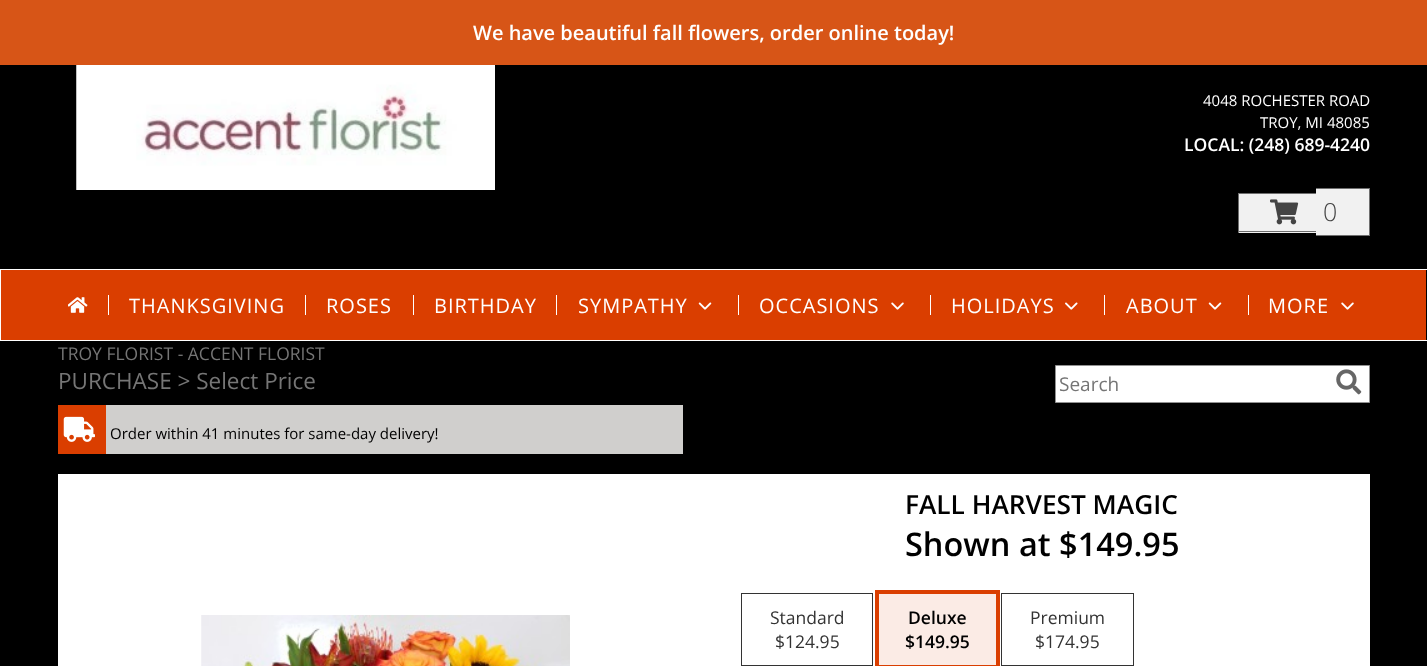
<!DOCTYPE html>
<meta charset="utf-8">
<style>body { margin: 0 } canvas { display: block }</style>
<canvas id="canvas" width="1427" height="666"></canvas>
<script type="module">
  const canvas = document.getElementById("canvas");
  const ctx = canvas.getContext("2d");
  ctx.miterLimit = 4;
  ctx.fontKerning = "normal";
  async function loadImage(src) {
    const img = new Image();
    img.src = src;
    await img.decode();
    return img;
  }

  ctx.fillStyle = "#000000";
  ctx.fillRect(0, 0, 1427, 666);
  ctx.fillStyle = "#d75517";
  ctx.fillRect(0, 0, 1427, 65);
  ctx.font = "600 20px Open Sans";
  ctx.fillStyle = "#ffffff";
  ctx.fillText("We have beautiful fall flowers, order online today!", 473, 40);
  ctx.drawImage(await loadImage("img1.png"), 76, 65, 419, 125);
  ctx.font = "15px Open Sans";
  ctx.fillText("4048 ROCHESTER ROAD", 1203, 106);
  ctx.fillText("TROY, MI 48085", 1260, 128);
  ctx.font = "600 17.5px Open Sans";
  ctx.fillText("LOCAL: (248) 689-4240", 1184, 151);
  ctx.fillStyle = "#f1f1f1";
  ctx.fillRect(1239, 194, 77, 39);
  ctx.fillStyle = "#6e6e6e";
  ctx.fillRect(1238, 193, 78, 1);
  ctx.fillRect(1238, 231, 78, 1);
  ctx.fillRect(1238, 193, 1, 40);
  ctx.fillStyle = "#f1f1f1";
  ctx.fillRect(1316, 188, 8, 48);
  ctx.fillStyle = "#6e6e6e";
  ctx.fillRect(1316, 188, 54, 1);
  ctx.fillRect(1316, 235, 8, 1);
  ctx.fillStyle = "#f1f1f1";
  ctx.fillRect(1324, 189, 45, 46);
  ctx.fillStyle = "#6e6e6e";
  ctx.fillRect(1369, 188, 1, 48);
  ctx.fillRect(1324, 235, 46, 1);
  ctx.drawImage(await loadImage("img2.png"), 1270, 199, 29, 26);
  ctx.font = "300 25px Open Sans";
  ctx.fillStyle = "#444444";
  ctx.fillText("0", 1323, 221);
  ctx.strokeStyle = "#ffffff";
  ctx.strokeRect(0.5, 269.5, 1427, 71);
  ctx.fillStyle = "#da3e00";
  ctx.fillRect(1, 270, 1425, 70);
  ctx.drawImage(await loadImage("img3.png"), 68, 297, 20, 16);
  ctx.fillStyle = "#ffffff";
  ctx.fillRect(108, 295, 1, 20);
  ctx.letterSpacing = "1px";
  ctx.font = "20px Open Sans";
  ctx.fillText("THANKSGIVING", 129, 313);
  ctx.fillRect(305, 295, 1, 20);
  ctx.fillText("ROSES", 326, 313);
  ctx.fillRect(413, 295, 1, 20);
  ctx.fillText("BIRTHDAY", 434, 313);
  ctx.fillRect(556, 295, 1, 20);
  ctx.fillText("SYMPATHY", 578, 313);
  ctx.drawImage(await loadImage("img4.png"), 698, 302, 14, 8);
  ctx.fillRect(738, 295, 1, 20);
  ctx.fillText("OCCASIONS", 759, 313);
  ctx.drawImage(await loadImage("img5.png"), 891, 302, 13, 8);
  ctx.fillRect(930, 295, 1, 20);
  ctx.fillText("HOLIDAYS", 951, 313);
  ctx.drawImage(await loadImage("img6.png"), 1065, 302, 13, 8);
  ctx.fillRect(1104, 295, 1, 20);
  ctx.fillText("ABOUT", 1126, 313);
  ctx.drawImage(await loadImage("img4.png"), 1208, 302, 14, 8);
  ctx.fillRect(1248, 295, 1, 20);
  ctx.fillText("MORE", 1268, 313);
  ctx.drawImage(await loadImage("img5.png"), 1341, 302, 13, 8);
  ctx.letterSpacing = "0px";
  ctx.font = "17.5px Open Sans";
  ctx.fillStyle = "#757575";
  ctx.fillText("TROY FLORIST - ACCENT FLORIST", 58, 360);
  ctx.font = "22.5px Open Sans";
  ctx.fillText("PURCHASE > Select Price", 58, 389);
  ctx.fillStyle = "#ffffff";
  ctx.beginPath();
  ctx.rect(1055.5, 365.5, 314, 37);
  ctx.fill();
  ctx.strokeStyle = "#919191";
  ctx.stroke();
  ctx.font = "19px Open Sans";
  ctx.fillStyle = "#757575";
  ctx.fillText("Search", 1059, 391);
  ctx.drawImage(await loadImage("img7.png"), 1336, 369, 26, 26);
  ctx.fillStyle = "#d0cfcd";
  ctx.fillRect(106, 405, 577, 49);
  ctx.fillStyle = "#da3e00";
  ctx.fillRect(58, 405, 48, 49);
  ctx.drawImage(await loadImage("img8.png"), 63, 416, 32, 26);
  ctx.font = "15px Open Sans";
  ctx.fillStyle = "#000000";
  ctx.fillText("Order within 41 minutes for same-day delivery!", 110, 439);
  ctx.fillStyle = "#ffffff";
  ctx.fillRect(58, 474, 1312, 192);
  ctx.drawImage(await loadImage("img9.png"), 201, 615, 369, 51);
  ctx.font = "600 26.25px Open Sans";
  ctx.fillStyle = "#000000";
  ctx.fillText("FALL HARVEST MAGIC", 905, 514);
  ctx.font = "600 32.5px Open Sans";
  ctx.fillText("Shown at $149.95", 905, 556);
  ctx.strokeStyle = "#333333";
  ctx.strokeRect(741.5, 593.5, 131, 72);
  ctx.font = "17.5px Open Sans";
  ctx.fillStyle = "#333333";
  ctx.fillText("Standard", 770, 624);
  ctx.fillText("$124.95", 775, 648);
  ctx.strokeStyle = "#da3e00";
  ctx.lineWidth = 4;
  ctx.strokeRect(877, 592, 121, 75);
  ctx.fillStyle = "#fbebe5";
  ctx.fillRect(879, 594, 117, 71);
  ctx.font = "600 17.5px Open Sans";
  ctx.fillStyle = "#000000";
  ctx.fillText("Deluxe", 908, 624);
  ctx.fillText("$149.95", 905, 648);
  ctx.strokeStyle = "#333333";
  ctx.lineWidth = 1;
  ctx.strokeRect(1001.5, 593.5, 132, 72);
  ctx.font = "17.5px Open Sans";
  ctx.fillStyle = "#333333";
  ctx.fillText("Premium", 1030, 624);
  ctx.fillText("$174.95", 1035, 648);
</script>
